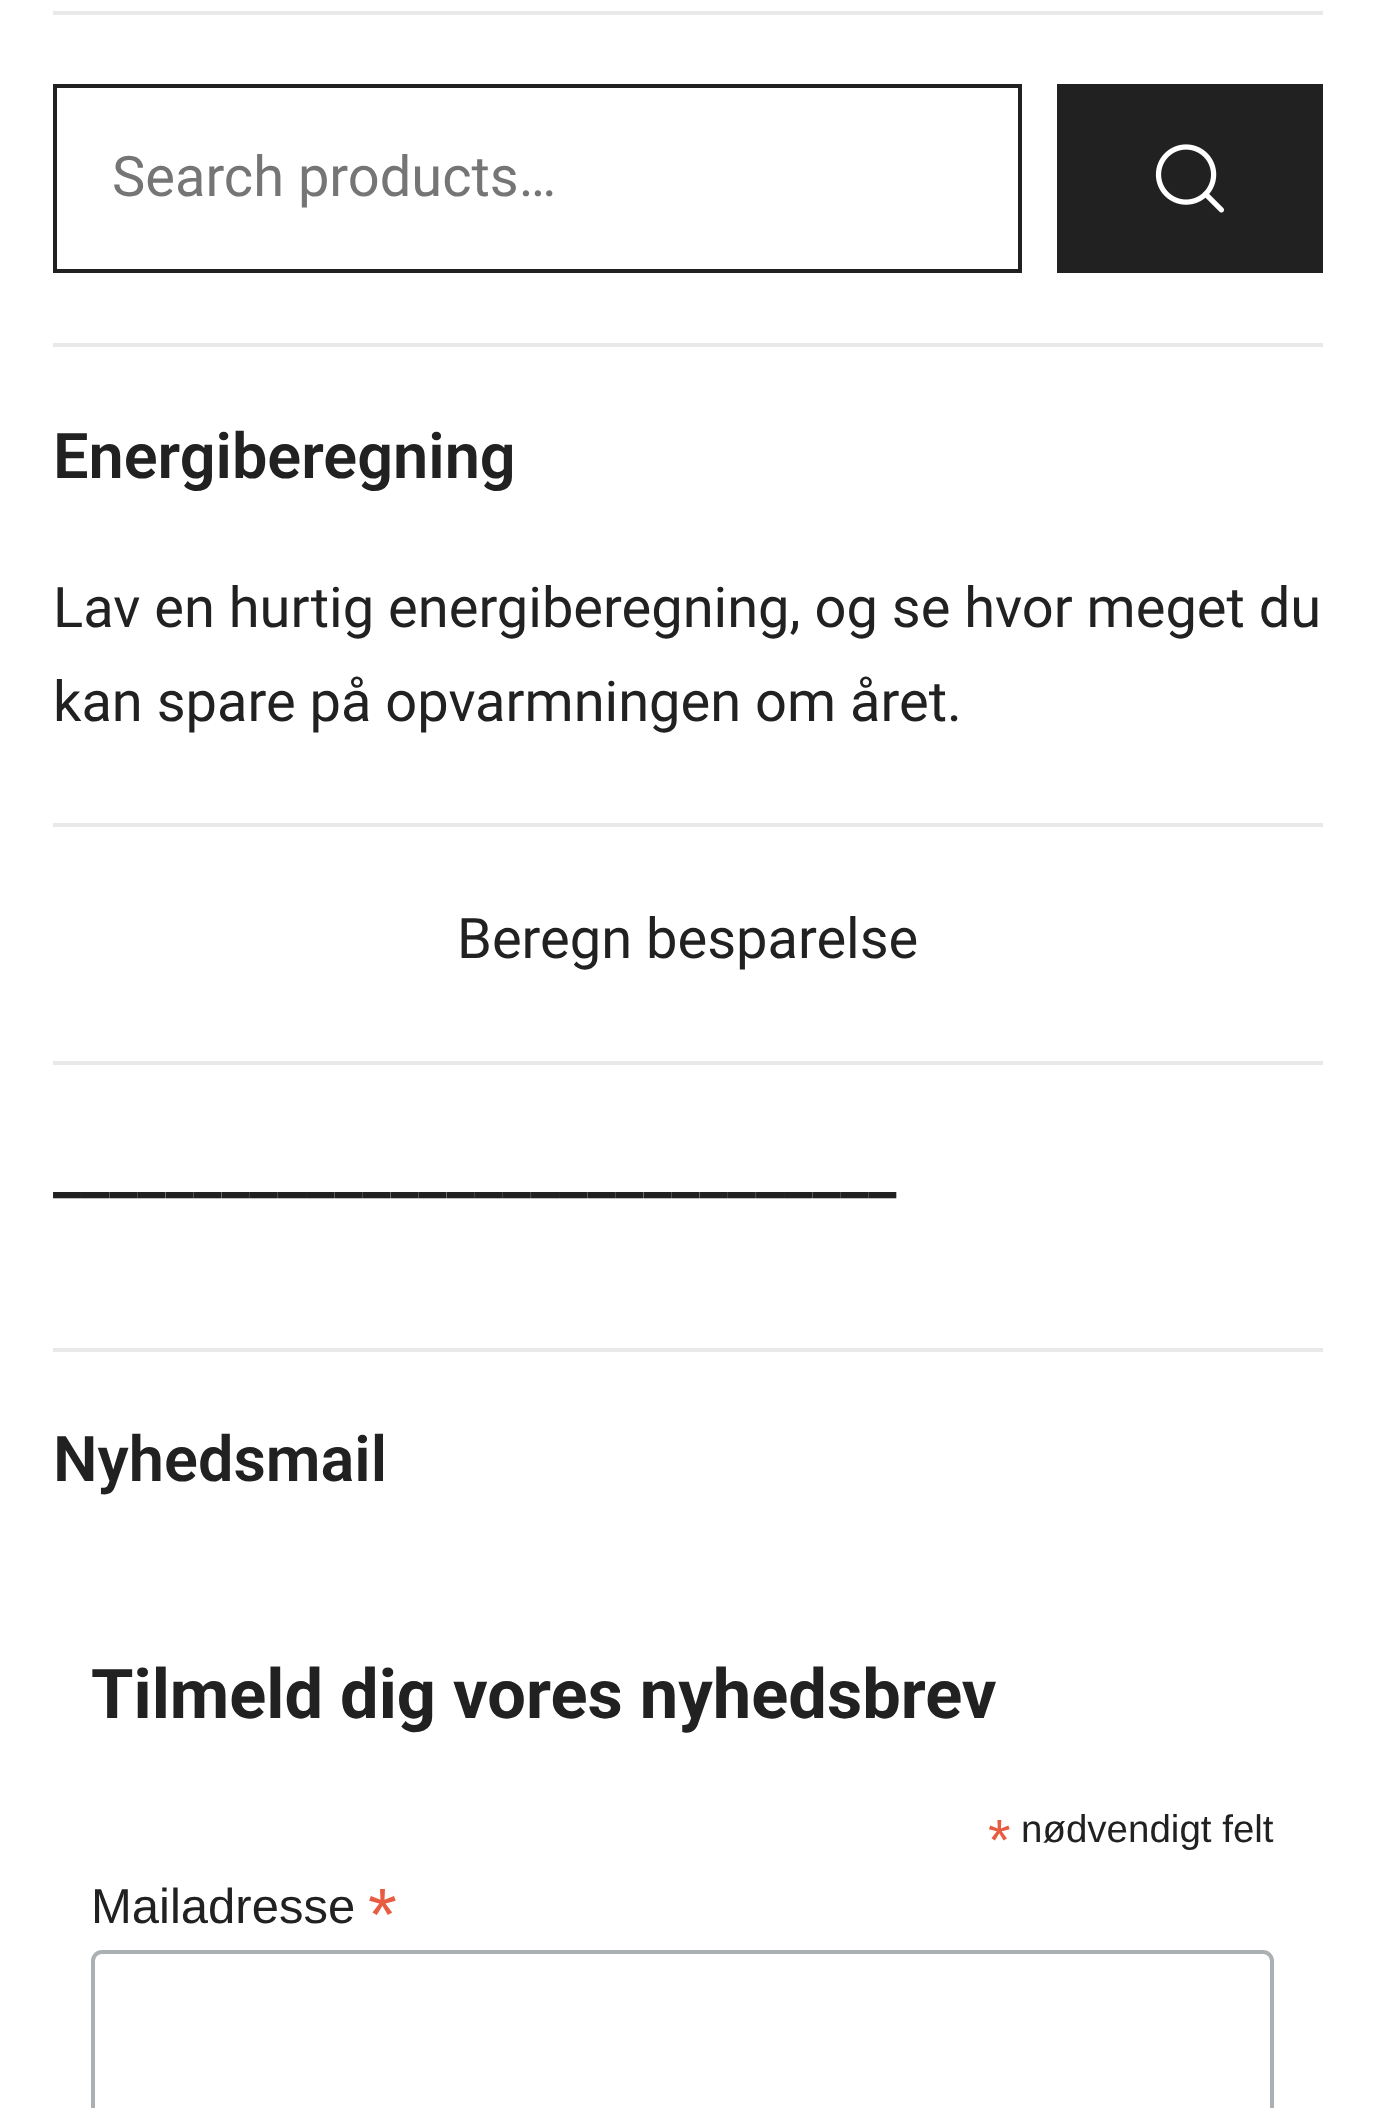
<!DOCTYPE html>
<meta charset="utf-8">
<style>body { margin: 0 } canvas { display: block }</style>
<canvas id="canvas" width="1374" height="2108"></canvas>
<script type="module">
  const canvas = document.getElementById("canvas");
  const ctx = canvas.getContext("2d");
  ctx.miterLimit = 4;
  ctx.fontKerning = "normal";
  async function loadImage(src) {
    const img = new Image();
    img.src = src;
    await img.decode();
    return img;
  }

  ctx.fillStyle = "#ffffff";
  ctx.fillRect(0, 0, 1374, 2108);
  ctx.fillStyle = "#e9e9e9";
  ctx.fillRect(53, 11, 1270, 4);
  ctx.fillRect(53, 343, 1270, 4);
  ctx.strokeStyle = "#212121";
  ctx.lineWidth = 4;
  ctx.strokeRect(55, 86, 965, 185);
  ctx.font = "56px Roboto";
  ctx.fillStyle = "#757575";
  ctx.fillText("Search products…", 112, 196);
  ctx.fillStyle = "#212121";
  ctx.fillRect(1057, 84, 266, 189);
  ctx.drawImage(await loadImage("img1.png"), 1155, 144, 69, 69);
  ctx.fillStyle = "#e9e9e9";
  ctx.fillRect(53, 823, 1270, 4);
  ctx.font = "600 63px Roboto";
  ctx.fillStyle = "#212121";
  ctx.fillText("Energiberegning", 53, 478);
  ctx.font = "56px Roboto";
  ctx.fillText("Lav en hurtig energiberegning, og se hvor meget du", 53, 627);
  ctx.fillText("kan spare på opvarmningen om året.", 53, 721);
  ctx.fillStyle = "#e9e9e9";
  ctx.fillRect(53, 1061, 1270, 4);
  ctx.fillStyle = "#212121";
  ctx.fillText("Beregn besparelse", 457, 958);
  ctx.fillStyle = "#e9e9e9";
  ctx.fillRect(53, 1348, 1270, 4);
  ctx.font = "600 63px Roboto";
  ctx.fillStyle = "#212121";
  ctx.fillText("______________________________", 53, 1192);
  ctx.fillText("Nyhedsmail", 53, 1481);
  ctx.font = "bold 68.6px Roboto";
  ctx.fillText("Tilmeld dig vores nyhedsbrev", 91, 1718);
  ctx.font = "58px Liberation Sans";
  ctx.fillStyle = "#e85c41";
  ctx.fillText("*", 988, 1860);
  ctx.font = "38.5px Liberation Sans";
  ctx.fillStyle = "#212121";
  ctx.fillText("nødvendigt felt", 1021, 1842);
  ctx.font = "49px Liberation Sans";
  ctx.fillText("Mailadresse", 91, 1923);
  ctx.font = "74px Liberation Sans";
  ctx.fillStyle = "#e85c41";
  ctx.fillText("*", 368, 1940);
  ctx.beginPath();
  ctx.roundRect(93, 1952, 1179, 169, 9);
  ctx.strokeStyle = "#abb0b2";
  ctx.stroke();
</script>
